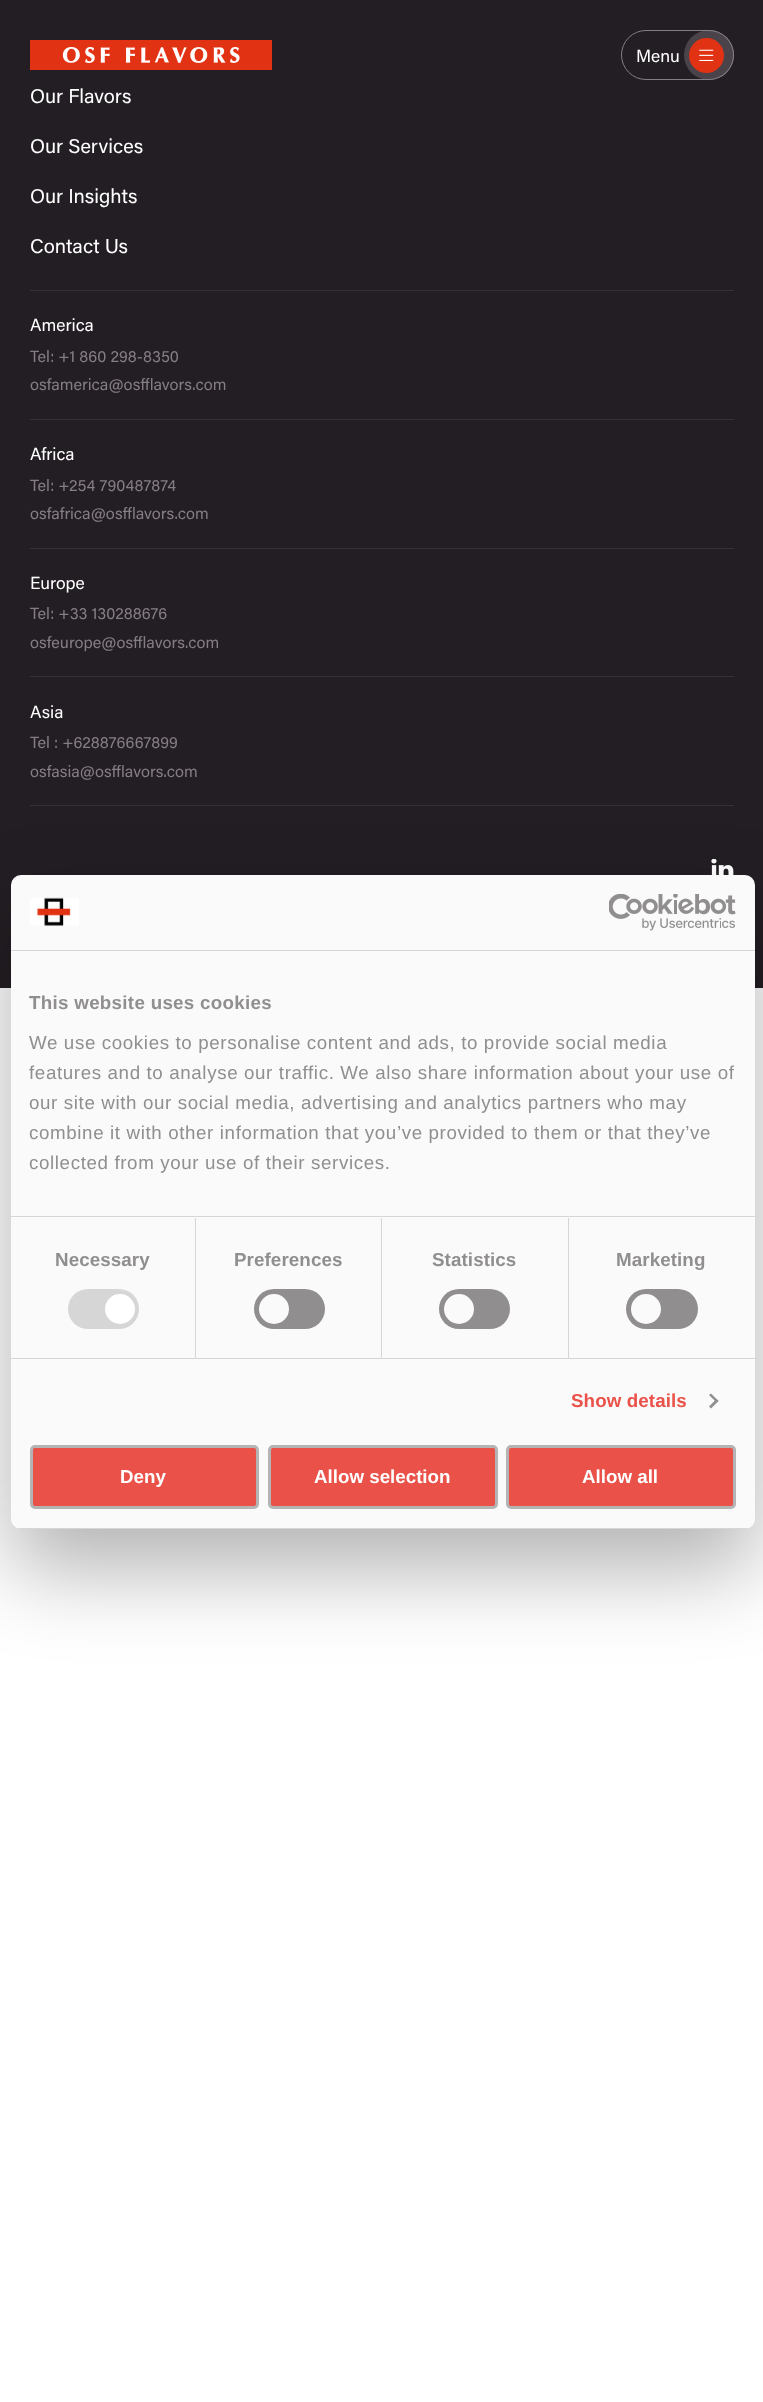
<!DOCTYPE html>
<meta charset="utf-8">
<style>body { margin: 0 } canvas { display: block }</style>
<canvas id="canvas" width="763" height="2402"></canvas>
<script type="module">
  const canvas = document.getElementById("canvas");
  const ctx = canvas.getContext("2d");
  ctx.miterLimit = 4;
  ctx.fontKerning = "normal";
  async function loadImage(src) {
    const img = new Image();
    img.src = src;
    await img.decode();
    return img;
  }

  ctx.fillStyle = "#ffffff";
  ctx.fillRect(0, 0, 763, 2402);
  ctx.fillStyle = "#231e23";
  ctx.fillRect(0, 0, 763, 988);
  ctx.drawImage(await loadImage("img1.png"), 30, 40, 242, 30);
  ctx.fillStyle = "#857d85";
  ctx.beginPath();
  ctx.arc(709, 55, 25, 0, Math.PI * 2);
  ctx.fill();
  ctx.fillStyle = "rgba(35, 30, 35, 0.6)";
  ctx.beginPath();
  ctx.roundRect(621.5, 30.5, 112, 49, 24.5);
  ctx.fill();
  ctx.strokeStyle = "#857d85";
  ctx.stroke();
  ctx.font = "17.5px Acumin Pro";
  ctx.fillStyle = "#ffffff";
  ctx.fillText("Menu", 636, 62);
  ctx.fillStyle = "#e23214";
  ctx.beginPath();
  ctx.arc(706.5, 55.5, 17.5, 0, Math.PI * 2);
  ctx.fill();
  ctx.drawImage(await loadImage("img2.png"), 699, 49, 15, 12);
  ctx.font = "20px Acumin Pro";
  ctx.fillStyle = "#ffffff";
  ctx.fillText("Our Flavors", 30, 103);
  ctx.fillText("Our Services", 30, 153);
  ctx.fillText("Our Insights", 30, 203);
  ctx.fillText("Contact Us", 30, 253);
  ctx.fillStyle = "#373137";
  ctx.fillRect(30, 290, 704, 1);
  ctx.font = "17.5px Acumin Pro";
  ctx.fillStyle = "#ffffff";
  ctx.fillText("America", 30, 331);
  ctx.font = "16.25px Acumin Pro";
  ctx.fillStyle = "#857d85";
  ctx.fillText("Tel: +1 860 298-8350", 30, 362);
  ctx.fillText("osfamerica@osfflavors.com", 30, 390);
  ctx.fillStyle = "#373137";
  ctx.fillRect(30, 419, 704, 1);
  ctx.font = "17.5px Acumin Pro";
  ctx.fillStyle = "#ffffff";
  ctx.fillText("Africa", 30, 460);
  ctx.font = "16.25px Acumin Pro";
  ctx.fillStyle = "#857d85";
  ctx.fillText("Tel: +254 790487874", 30, 491);
  ctx.fillText("osfafrica@osfflavors.com", 30, 519);
  ctx.fillStyle = "#373137";
  ctx.fillRect(30, 548, 704, 1);
  ctx.font = "17.5px Acumin Pro";
  ctx.fillStyle = "#ffffff";
  ctx.fillText("Europe", 30, 589);
  ctx.font = "16.25px Acumin Pro";
  ctx.fillStyle = "#857d85";
  ctx.fillText("Tel: +33 130288676", 30, 619);
  ctx.fillText("osfeurope@osfflavors.com", 30, 648);
  ctx.fillStyle = "#373137";
  ctx.fillRect(30, 676, 704, 1);
  ctx.font = "17.5px Acumin Pro";
  ctx.fillStyle = "#ffffff";
  ctx.fillText("Asia", 30, 718);
  ctx.font = "16.25px Acumin Pro";
  ctx.fillStyle = "#857d85";
  ctx.fillText("Tel : +628876667899", 30, 748);
  ctx.fillText("osfasia@osfflavors.com", 30, 777);
  ctx.fillStyle = "#373137";
  ctx.fillRect(30, 805, 704, 1);
  ctx.drawImage(await loadImage("img3.png"), 711, 859, 23, 16);
  ctx.fillStyle = "rgba(0, 0, 0, 0.3)";
  ctx.filter = "blur(42.5px)";
  ctx.beginPath();
  ctx.roundRect(11, 915, 744, 654, 10);
  ctx.fill();
  ctx.filter = "none";
  ctx.fillStyle = "#fafafa";
  ctx.beginPath();
  ctx.roundRect(11, 875, 744, 654, 10);
  ctx.fill();
  ctx.fillStyle = "#d6d6d6";
  ctx.fillRect(11, 950, 744, 1);
  ctx.drawImage(await loadImage("img4.png"), 30, 897, 49, 29);
  ctx.drawImage(await loadImage("img5.png"), 609, 894, 127, 37);
  ctx.fillRect(11, 1216, 744, 1);
  ctx.letterSpacing = "0.3px";
  ctx.font = "bold 18.75px Liberation Sans";
  ctx.fillStyle = "#908e8e";
  ctx.fillText("This website uses cookies", 29, 1009);
  ctx.letterSpacing = "0.62px";
  ctx.font = "18.75px Liberation Sans";
  ctx.fillText("We use cookies to personalise content and ads, to provide social media", 29, 1049);
  ctx.fillText("features and to analyse our traffic. We also share information about your use of", 29, 1079);
  ctx.fillText("our site with our social media, advertising and analytics partners who may", 29, 1109);
  ctx.fillText("combine it with other information that you’ve provided to them or that they’ve", 29, 1139);
  ctx.fillText("collected from your use of their services.", 29, 1169);
  ctx.fillStyle = "#d6d6d6";
  ctx.fillRect(11, 1358, 744, 1);
  ctx.fillRect(195, 1218, 1, 140);
  ctx.letterSpacing = "0.1px";
  ctx.font = "bold 18.75px Liberation Sans";
  ctx.fillStyle = "#908e8e";
  ctx.fillText("Necessary", 55, 1266);
  ctx.fillStyle = "#d6d6d6";
  ctx.beginPath();
  ctx.roundRect(68, 1289, 71, 40, 20);
  ctx.fill();
  ctx.fillStyle = "#ffffff";
  ctx.beginPath();
  ctx.arc(120, 1309, 15, 0, Math.PI * 2);
  ctx.fill();
  ctx.fillStyle = "#d6d6d6";
  ctx.fillRect(381, 1218, 1, 140);
  ctx.fillStyle = "#908e8e";
  ctx.fillText("Preferences", 234, 1266);
  ctx.beginPath();
  ctx.roundRect(254, 1289, 71, 40, 20);
  ctx.fill();
  ctx.fillStyle = "#fafafa";
  ctx.beginPath();
  ctx.arc(274, 1309, 15, 0, Math.PI * 2);
  ctx.fill();
  ctx.fillStyle = "#d6d6d6";
  ctx.fillRect(568, 1218, 1, 140);
  ctx.fillStyle = "#908e8e";
  ctx.fillText("Statistics", 432, 1266);
  ctx.beginPath();
  ctx.roundRect(439, 1289, 71, 40, 20);
  ctx.fill();
  ctx.fillStyle = "#fafafa";
  ctx.beginPath();
  ctx.arc(459, 1309, 15, 0, Math.PI * 2);
  ctx.fill();
  ctx.fillStyle = "#908e8e";
  ctx.fillText("Marketing", 616, 1266);
  ctx.beginPath();
  ctx.roundRect(626, 1289, 72, 40, 20);
  ctx.fill();
  ctx.fillStyle = "#fafafa";
  ctx.beginPath();
  ctx.arc(646, 1309, 15, 0, Math.PI * 2);
  ctx.fill();
  ctx.fillStyle = "#ea5148";
  ctx.fillText("Show details", 571, 1407);
  ctx.fillStyle = "#908e8e";
  ctx.beginPath();
  ctx.moveTo(711, 1393.5);
  ctx.lineTo(718.5, 1401);
  ctx.lineTo(716.5, 1402.5);
  ctx.lineTo(709, 1395);
  ctx.closePath();
  ctx.fill();
  ctx.beginPath();
  ctx.moveTo(716.5, 1399);
  ctx.lineTo(718.5, 1401);
  ctx.lineTo(711, 1408.5);
  ctx.lineTo(709, 1406.5);
  ctx.closePath();
  ctx.fill();
  ctx.save();
  ctx.beginPath();
  ctx.roundRect(11, 875, 744, 654, 10);
  ctx.clip();
  ctx.fillStyle = "#d6d6d6";
  ctx.fillRect(11, 1528, 744, 1);
  ctx.restore();
  ctx.fillStyle = "#ea5148";
  ctx.beginPath();
  ctx.roundRect(31.5, 1446.5, 226, 61, 3.5);
  ctx.fill();
  ctx.strokeStyle = "#b4b4b4";
  ctx.lineWidth = 3;
  ctx.stroke();
  ctx.letterSpacing = "0px";
  ctx.fillStyle = "#ffffff";
  ctx.fillText("Deny", 120, 1483);
  ctx.fillStyle = "#ea5148";
  ctx.beginPath();
  ctx.roundRect(269.5, 1446.5, 227, 61, 3.5);
  ctx.fill();
  ctx.stroke();
  ctx.fillStyle = "#ffffff";
  ctx.fillText("Allow selection", 314, 1483);
  ctx.fillStyle = "#ea5148";
  ctx.beginPath();
  ctx.roundRect(507.5, 1446.5, 227, 61, 3.5);
  ctx.fill();
  ctx.stroke();
  ctx.fillStyle = "#ffffff";
  ctx.fillText("Allow all", 582, 1483);
</script>
